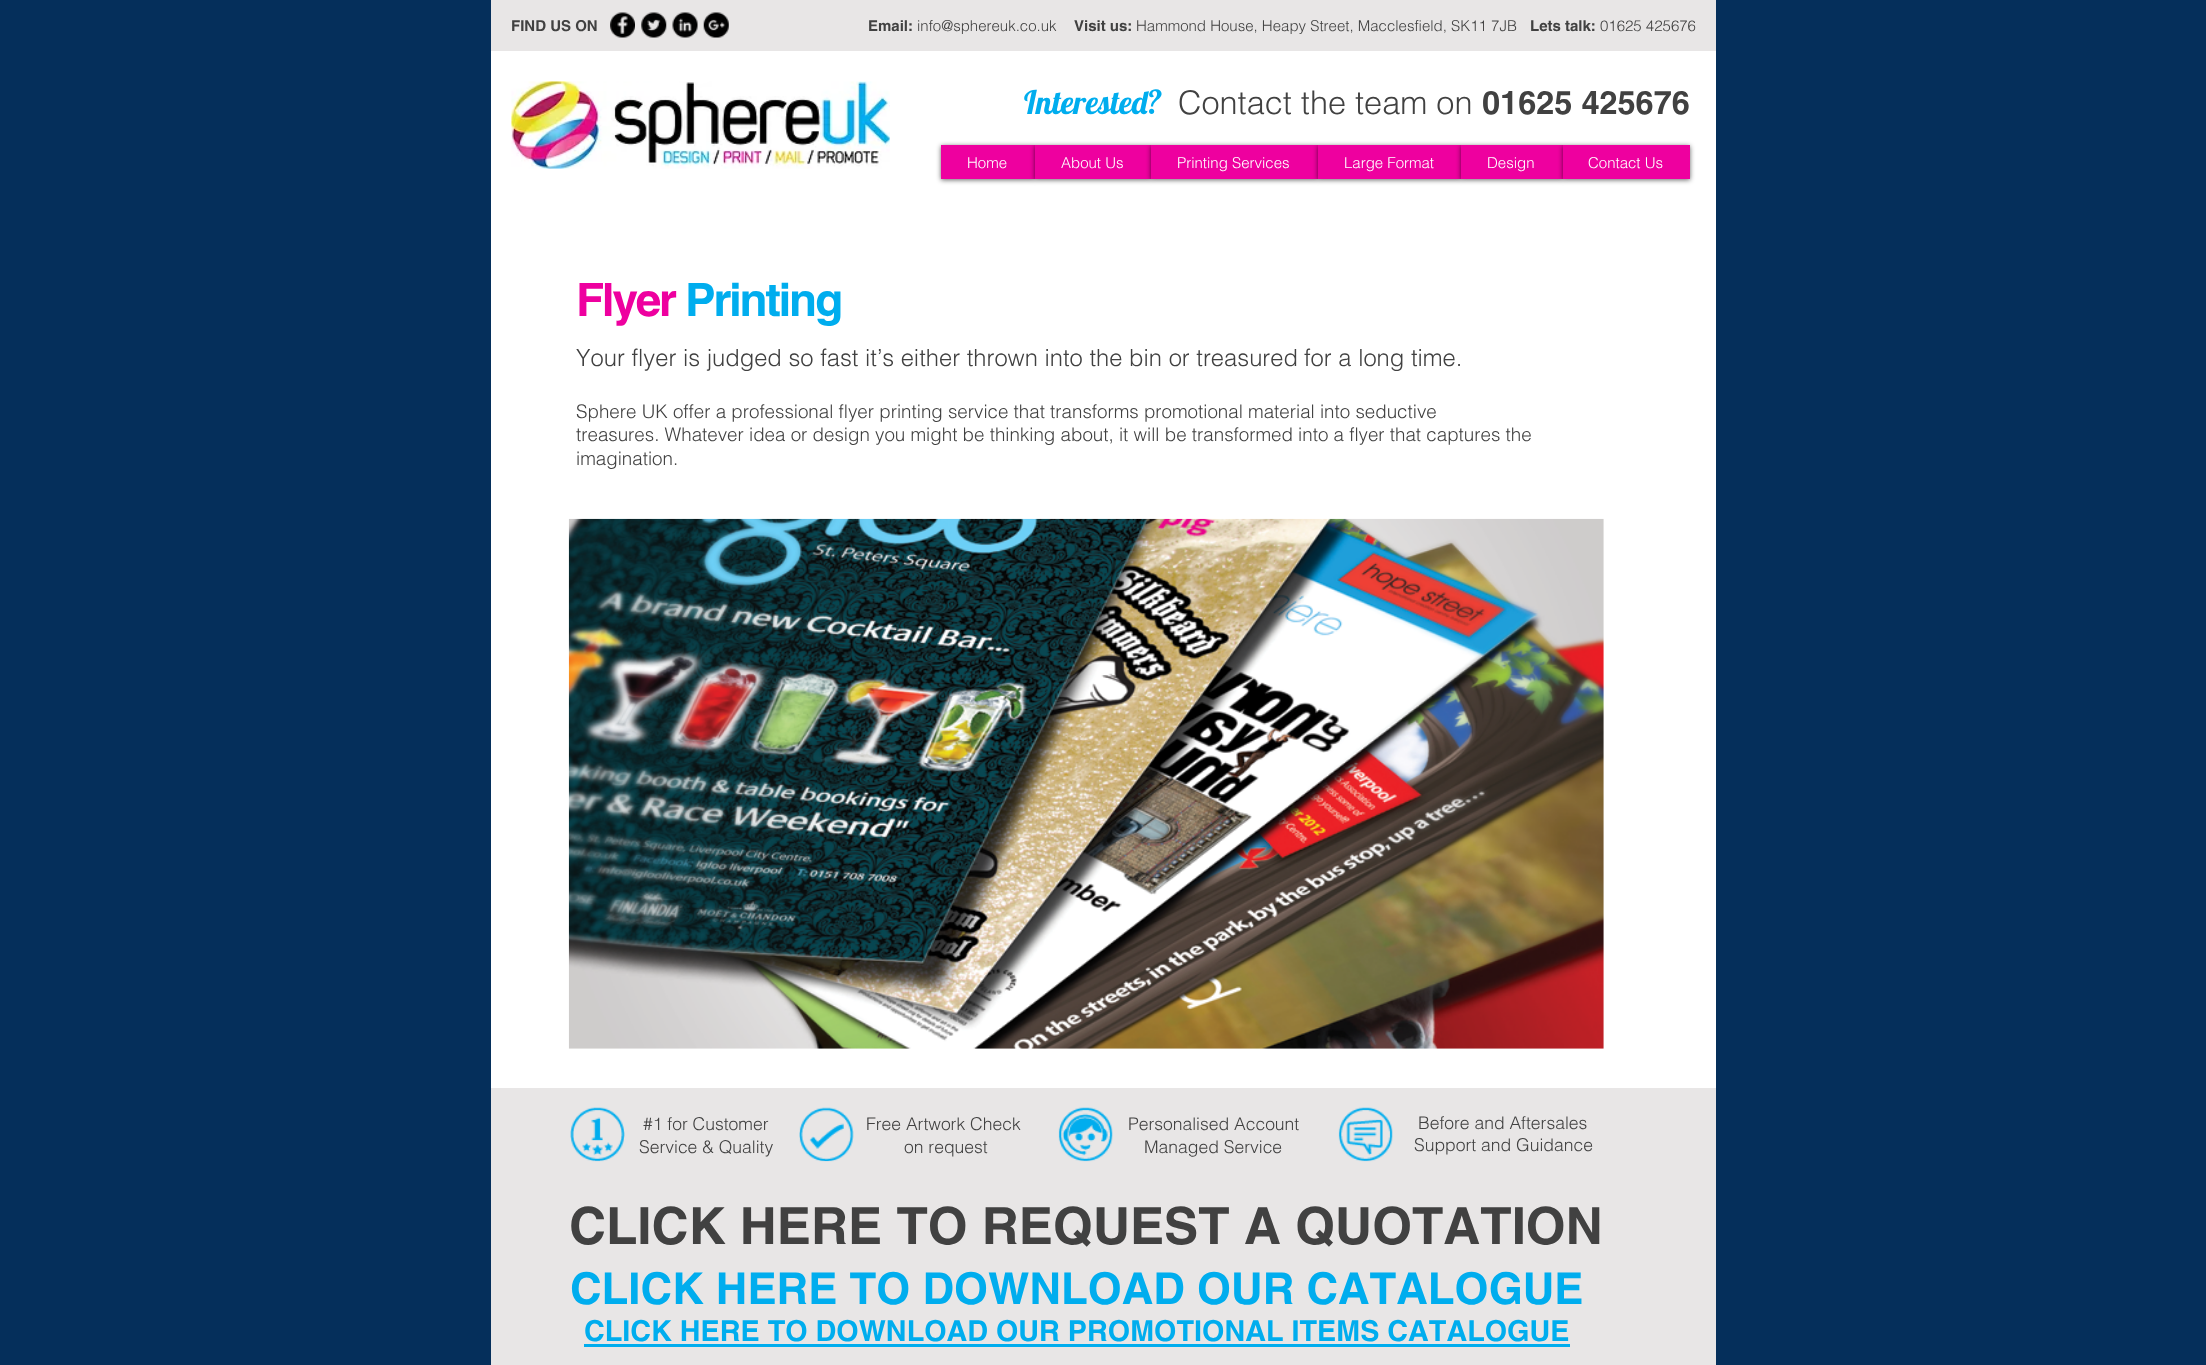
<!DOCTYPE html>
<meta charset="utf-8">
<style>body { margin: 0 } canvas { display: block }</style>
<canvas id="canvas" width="2206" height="1365"></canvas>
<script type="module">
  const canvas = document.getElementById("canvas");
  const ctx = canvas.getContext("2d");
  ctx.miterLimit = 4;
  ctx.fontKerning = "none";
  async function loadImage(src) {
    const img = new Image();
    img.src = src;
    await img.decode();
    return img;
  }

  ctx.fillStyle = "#052f5b";
  ctx.fillRect(0, 0, 2206, 1365);
  ctx.fillStyle = "#e8e6e6";
  ctx.fillRect(491, 0, 1225, 51);
  ctx.font = "bold 15px helvetica";
  ctx.fillStyle = "#414141";
  ctx.fillText("FIND US ON", 511, 31);
  ctx.drawImage(await loadImage("img1.png"), 610, 12, 25, 26);
  ctx.drawImage(await loadImage("img2.png"), 641, 12, 26, 26);
  ctx.drawImage(await loadImage("img3.png"), 672, 12, 26, 26);
  ctx.drawImage(await loadImage("img4.png"), 703, 12, 26, 26);
  ctx.fillText("Email:", 868, 31);
  ctx.font = "300 15px helvetica";
  ctx.fillText("info@sphereuk.co.uk", 917, 31);
  ctx.font = "bold 15px helvetica";
  ctx.fillText("Visit us:", 1074, 31);
  ctx.font = "300 15px helvetica";
  ctx.fillText("Hammond House, Heapy Street, Macclesfield, SK11 7JB", 1136, 31);
  ctx.font = "bold 15px helvetica";
  ctx.fillText("Lets talk:", 1530, 31);
  ctx.font = "300 15px helvetica";
  ctx.fillText("01625 425676", 1600, 31);
  ctx.fillStyle = "#ffffff";
  ctx.fillRect(491, 51, 1225, 1037);
  ctx.drawImage(await loadImage("img5.png"), 511, 81, 379, 88);
  ctx.font = "32.5px Lobster";
  ctx.fillStyle = "#00adee";
  ctx.fillText("Interested?", 1024, 114);
  ctx.font = "300 32.5px helvetica";
  ctx.fillStyle = "#414141";
  ctx.fillText("Contact the team on", 1178, 114);
  ctx.font = "bold 32.5px helvetica";
  ctx.fillText("01625 425676", 1482, 114);
  ctx.fillStyle = "rgba(0, 0, 0, 0.6)";
  ctx.filter = "blur(2.5px)";
  ctx.beginPath();
  ctx.rect(941, 146, 94, 34);
  ctx.fill();
  ctx.filter = "none";
  ctx.fillStyle = "#ee009f";
  ctx.fillRect(941, 145, 94, 34);
  ctx.font = "300 15px helvetica";
  ctx.fillStyle = "#ffffff";
  ctx.fillText("Home", 967, 168);
  ctx.fillStyle = "rgba(0, 0, 0, 0.6)";
  ctx.filter = "blur(2.5px)";
  ctx.beginPath();
  ctx.rect(1035, 146, 116, 34);
  ctx.fill();
  ctx.filter = "none";
  ctx.fillStyle = "#ee009f";
  ctx.fillRect(1035, 145, 116, 34);
  ctx.fillStyle = "#ffffff";
  ctx.fillText("About Us", 1061, 168);
  ctx.fillStyle = "rgba(0, 0, 0, 0.6)";
  ctx.filter = "blur(2.5px)";
  ctx.beginPath();
  ctx.rect(1151, 146, 167, 34);
  ctx.fill();
  ctx.filter = "none";
  ctx.fillStyle = "#ee009f";
  ctx.fillRect(1151, 145, 167, 34);
  ctx.fillStyle = "#ffffff";
  ctx.fillText("Printing Services", 1177, 168);
  ctx.fillStyle = "rgba(0, 0, 0, 0.6)";
  ctx.filter = "blur(2.5px)";
  ctx.beginPath();
  ctx.rect(1318, 146, 143, 34);
  ctx.fill();
  ctx.filter = "none";
  ctx.fillStyle = "#ee009f";
  ctx.fillRect(1318, 145, 143, 34);
  ctx.fillStyle = "#ffffff";
  ctx.fillText("Large Format", 1344, 168);
  ctx.fillStyle = "rgba(0, 0, 0, 0.6)";
  ctx.filter = "blur(2.5px)";
  ctx.beginPath();
  ctx.rect(1461, 146, 102, 34);
  ctx.fill();
  ctx.filter = "none";
  ctx.fillStyle = "#ee009f";
  ctx.fillRect(1461, 145, 102, 34);
  ctx.fillStyle = "#ffffff";
  ctx.fillText("Design", 1487, 168);
  ctx.fillStyle = "rgba(0, 0, 0, 0.6)";
  ctx.filter = "blur(2.5px)";
  ctx.beginPath();
  ctx.rect(1563, 146, 127, 34);
  ctx.fill();
  ctx.filter = "none";
  ctx.fillStyle = "#ee009f";
  ctx.fillRect(1563, 145, 127, 34);
  ctx.fillStyle = "#ffffff";
  ctx.fillText("Contact Us", 1588, 168);
  ctx.letterSpacing = "-2.25px";
  ctx.font = "bold 46px helvetica";
  ctx.fillStyle = "#ee009f";
  ctx.fillText("Flyer", 576, 316);
  ctx.fillStyle = "#00adee";
  ctx.fillText("Printing", 685, 316);
  ctx.letterSpacing = "0px";
  ctx.font = "300 23.75px helvetica";
  ctx.fillStyle = "#414141";
  ctx.fillText("Your flyer is judged so fast it’s either thrown into the bin or treasured", 576, 366);
  ctx.fillText("for a long time.", 1304, 366);
  ctx.font = "300 18.75px helvetica";
  ctx.fillText("Sphere UK offer a professional flyer printing service that transforms promotional material into seductive", 576, 418);
  ctx.fillText("treasures. Whatever idea or design you might be thinking about, it will be transformed into a flyer that captures the", 576, 441);
  ctx.fillText("imagination.", 576, 465);
  ctx.drawImage(await loadImage("img6.png"), 568, 518, 1036, 531);
  ctx.fillStyle = "#e8e6e6";
  ctx.fillRect(491, 1088, 1225, 277);
  ctx.drawImage(await loadImage("img7.png"), 570, 1107, 55, 55);
  ctx.font = "300 17.5px helvetica";
  ctx.fillStyle = "#414141";
  ctx.fillText("#1 for Customer", 643, 1130);
  ctx.fillText("Service & Quality", 639, 1153);
  ctx.drawImage(await loadImage("img8.png"), 799, 1107, 55, 55);
  ctx.fillText("Free Artwork Check", 866, 1130);
  ctx.fillText("on request", 904, 1153);
  ctx.drawImage(await loadImage("img9.png"), 1058, 1107, 55, 55);
  ctx.fillText("Personalised Account", 1128, 1130);
  ctx.fillText("Managed Service", 1144, 1153);
  ctx.drawImage(await loadImage("img10.png"), 1338, 1107, 55, 55);
  ctx.fillText("Before and Aftersales", 1418, 1129);
  ctx.fillText("Support and Guidance", 1414, 1151);
  ctx.font = "bold 51.25px helvetica";
  ctx.fillText("CLICK HERE TO REQUEST", 569, 1244);
  ctx.fillText("A QUOTATION", 1244, 1244);
  ctx.font = "bold 43.75px helvetica";
  ctx.fillStyle = "#00adee";
  ctx.fillText("CLICK HERE TO DOWNLOAD", 570, 1304);
  ctx.fillText("OUR CATALOGUE", 1197, 1304);
  ctx.font = "bold 28.75px helvetica";
  ctx.fillText("CLICK HERE TO DOWNLOAD", 584, 1341);
  ctx.fillText("OUR PROMOTIONAL ITEMS CATALOGUE", 996, 1341);
  ctx.fillRect(584, 1344, 986, 3);
</script>
